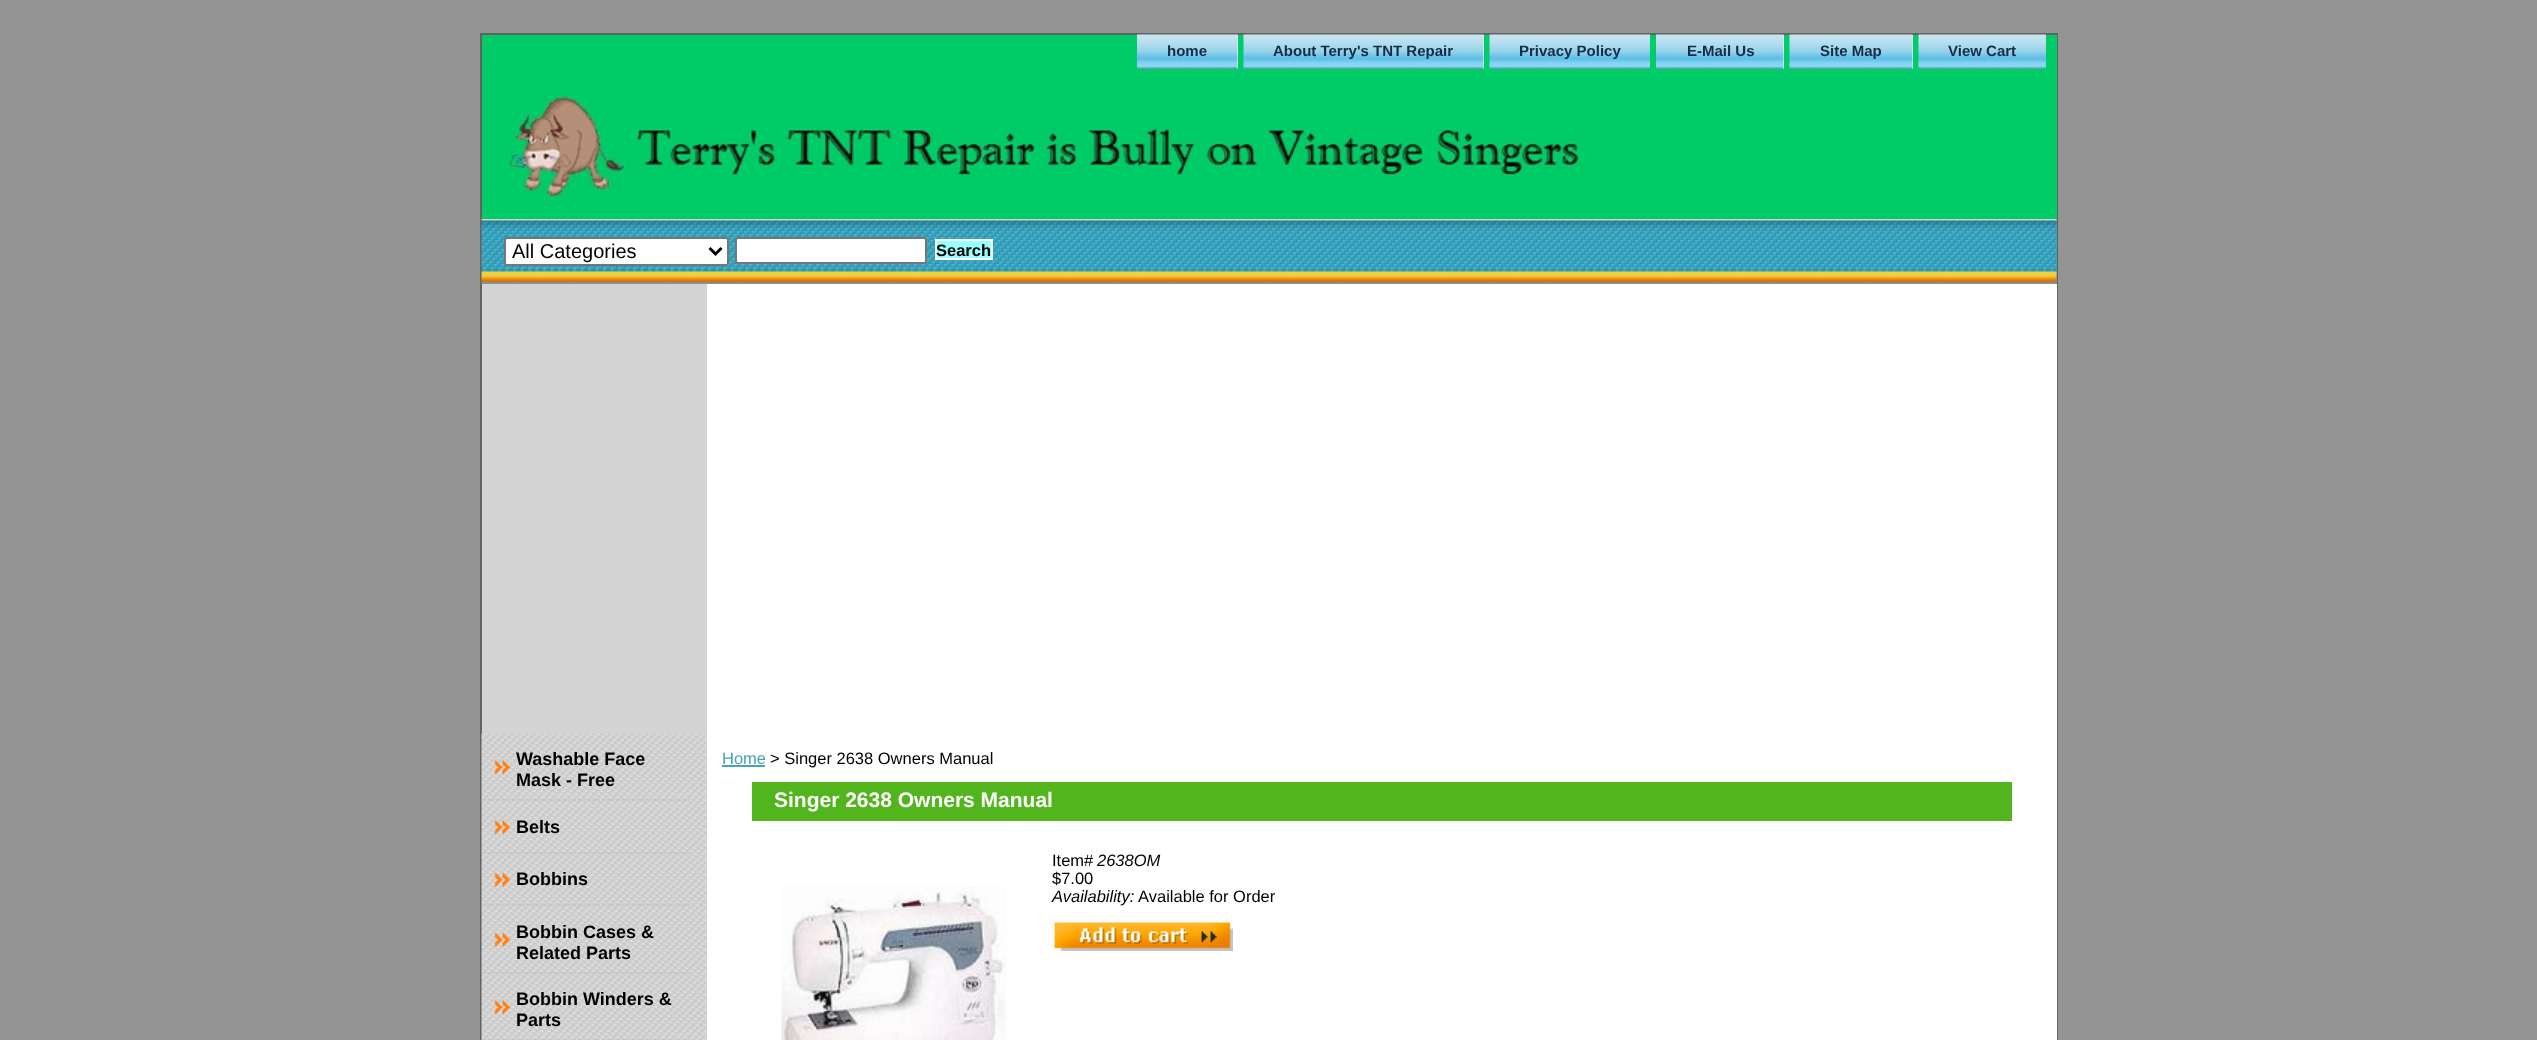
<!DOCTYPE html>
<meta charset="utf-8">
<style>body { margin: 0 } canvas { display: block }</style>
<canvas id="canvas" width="2537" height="1040"></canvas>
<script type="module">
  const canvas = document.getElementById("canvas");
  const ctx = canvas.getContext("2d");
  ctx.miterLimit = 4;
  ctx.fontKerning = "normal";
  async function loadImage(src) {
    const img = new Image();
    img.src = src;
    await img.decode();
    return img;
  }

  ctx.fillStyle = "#949494";
  ctx.fillRect(0, 0, 2537, 1040);
  ctx.strokeStyle = "#626262";
  ctx.lineWidth = 2;
  ctx.strokeRect(481, 34, 1576, 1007);
  ctx.fillStyle = "#00cd68";
  ctx.fillRect(482, 35, 1575, 184);
  ctx.fillStyle = "#ffffff";
  ctx.fillRect(1237, 35, 1, 34);
  ctx.drawImage(await loadImage("img1.png"), 1137, 34, 101, 35);
  ctx.font = "bold 15px Liberation Sans";
  ctx.fillStyle = "#162b47";
  ctx.fillText("home", 1167, 56);
  ctx.fillStyle = "#ffffff";
  ctx.fillRect(1483, 35, 1, 34);
  ctx.drawImage(await loadImage("img2.png"), 1243, 34, 241, 35);
  ctx.fillStyle = "#162b47";
  ctx.fillText("About Terry's TNT Repair", 1273, 56);
  ctx.drawImage(await loadImage("img3.png"), 1489, 34, 161, 35);
  ctx.fillText("Privacy Policy", 1519, 56);
  ctx.fillStyle = "#ffffff";
  ctx.fillRect(1783, 35, 1, 34);
  ctx.drawImage(await loadImage("img4.png"), 1656, 34, 128, 35);
  ctx.fillStyle = "#162b47";
  ctx.fillText("E-Mail Us", 1687, 56);
  ctx.fillStyle = "#ffffff";
  ctx.fillRect(1912, 35, 1, 34);
  ctx.drawImage(await loadImage("img5.png"), 1789, 34, 124, 35);
  ctx.fillStyle = "#162b47";
  ctx.fillText("Site Map", 1820, 56);
  ctx.drawImage(await loadImage("img6.png"), 1918, 34, 128, 35);
  ctx.fillText("View Cart", 1948, 56);
  ctx.drawImage(await loadImage("img7.png"), 501, 93, 1082, 105);
  ctx.fillStyle = "#47a1b8";
  ctx.fillRect(482, 219, 1575, 65);
  ctx.drawImage(await loadImage("img8.png"), 481, 219, 1576, 65);
  ctx.fillStyle = "#ffffff";
  ctx.beginPath();
  ctx.roundRect(505, 238, 223, 27, 2);
  ctx.fill();
  ctx.strokeStyle = "#767676";
  ctx.stroke();
  ctx.beginPath();
  ctx.moveTo(709.5, 248);
  ctx.lineTo(715.5, 254);
  ctx.lineTo(721.5, 248);
  ctx.strokeStyle = "#000000";
  ctx.lineWidth = 3;
  ctx.stroke();
  ctx.font = "20px Liberation Sans";
  ctx.fillStyle = "#000000";
  ctx.fillText("All Categories", 512, 258);
  ctx.fillStyle = "#ffffff";
  ctx.beginPath();
  ctx.roundRect(736, 238, 190, 25, 2);
  ctx.fill();
  ctx.strokeStyle = "#767676";
  ctx.lineWidth = 2;
  ctx.stroke();
  ctx.fillStyle = "#99ffff";
  ctx.beginPath();
  ctx.rect(936, 240, 56, 19);
  ctx.fill();
  ctx.strokeStyle = "#ffffff";
  ctx.stroke();
  ctx.font = "bold 16.5px Liberation Sans";
  ctx.fillStyle = "#000000";
  ctx.fillText("Search", 936, 256);
  ctx.fillStyle = "#ffffff";
  ctx.fillRect(707, 284, 1350, 756);
  ctx.fillStyle = "#d3d3d3";
  ctx.fillRect(482, 284, 225, 756);
  ctx.drawImage(await loadImage("img9.png"), 481, 733, 226, 307);
  ctx.drawImage(await loadImage("img10.png"), 494, 760, 17, 15);
  ctx.beginPath();
  ctx.moveTo(481.5, 800);
  ctx.lineTo(691.5, 800);
  ctx.strokeStyle = "#bfc5b7";
  ctx.lineWidth = 1.5;
  ctx.setLineDash([1.5, 1.5]);
  ctx.stroke();
  ctx.font = "bold 18px Liberation Sans";
  ctx.fillStyle = "#000000";
  ctx.fillText("Washable Face", 516, 765);
  ctx.fillText("Mask - Free", 516, 786);
  ctx.drawImage(await loadImage("img10.png"), 494, 820, 17, 15);
  ctx.beginPath();
  ctx.moveTo(481.5, 853);
  ctx.lineTo(691.5, 853);
  ctx.stroke();
  ctx.fillText("Belts", 516, 833);
  ctx.drawImage(await loadImage("img11.png"), 494, 872, 17, 15);
  ctx.beginPath();
  ctx.moveTo(481.5, 905);
  ctx.lineTo(691.5, 905);
  ctx.stroke();
  ctx.fillText("Bobbins", 516, 885);
  ctx.drawImage(await loadImage("img11.png"), 494, 932, 17, 15);
  ctx.beginPath();
  ctx.moveTo(481.5, 973);
  ctx.lineTo(691.5, 973);
  ctx.stroke();
  ctx.fillText("Bobbin Cases &", 516, 938);
  ctx.fillText("Related Parts", 516, 959);
  ctx.drawImage(await loadImage("img10.png"), 494, 1000, 17, 15);
  ctx.beginPath();
  ctx.moveTo(481.5, 1040);
  ctx.lineTo(691.5, 1040);
  ctx.stroke();
  ctx.fillText("Bobbin Winders &", 516, 1005);
  ctx.fillText("Parts", 516, 1026);
  ctx.font = "16.5px Liberation Sans";
  ctx.fillStyle = "#47a1b8";
  ctx.fillText("Home", 722, 764);
  ctx.fillRect(722, 765, 43, 2);
  ctx.fillStyle = "#000000";
  ctx.fillText("> Singer 2638 Owners Manual", 770, 764);
  ctx.fillStyle = "#52b51e";
  ctx.fillRect(752, 782, 1260, 39);
  ctx.font = "bold 21px Liberation Sans";
  ctx.fillStyle = "#ffffff";
  ctx.fillText("Singer 2638 Owners Manual", 774, 807);
  ctx.font = "16.5px Liberation Sans";
  ctx.fillStyle = "#000000";
  ctx.fillText("Item#", 1052, 866);
  ctx.font = "italic 16.5px Liberation Sans";
  ctx.fillText("2638OM", 1097, 866);
  ctx.font = "16.5px Liberation Sans";
  ctx.fillText("$7.00", 1052, 884);
  ctx.font = "italic 16.5px Liberation Sans";
  ctx.fillText("Availability:", 1052, 902);
  ctx.font = "16.5px Liberation Sans";
  ctx.fillText("Available for Order", 1138, 902);
  ctx.drawImage(await loadImage("img12.png"), 1054, 922, 179, 29);
  ctx.drawImage(await loadImage("img13.png"), 781, 886, 226, 154);
</script>
